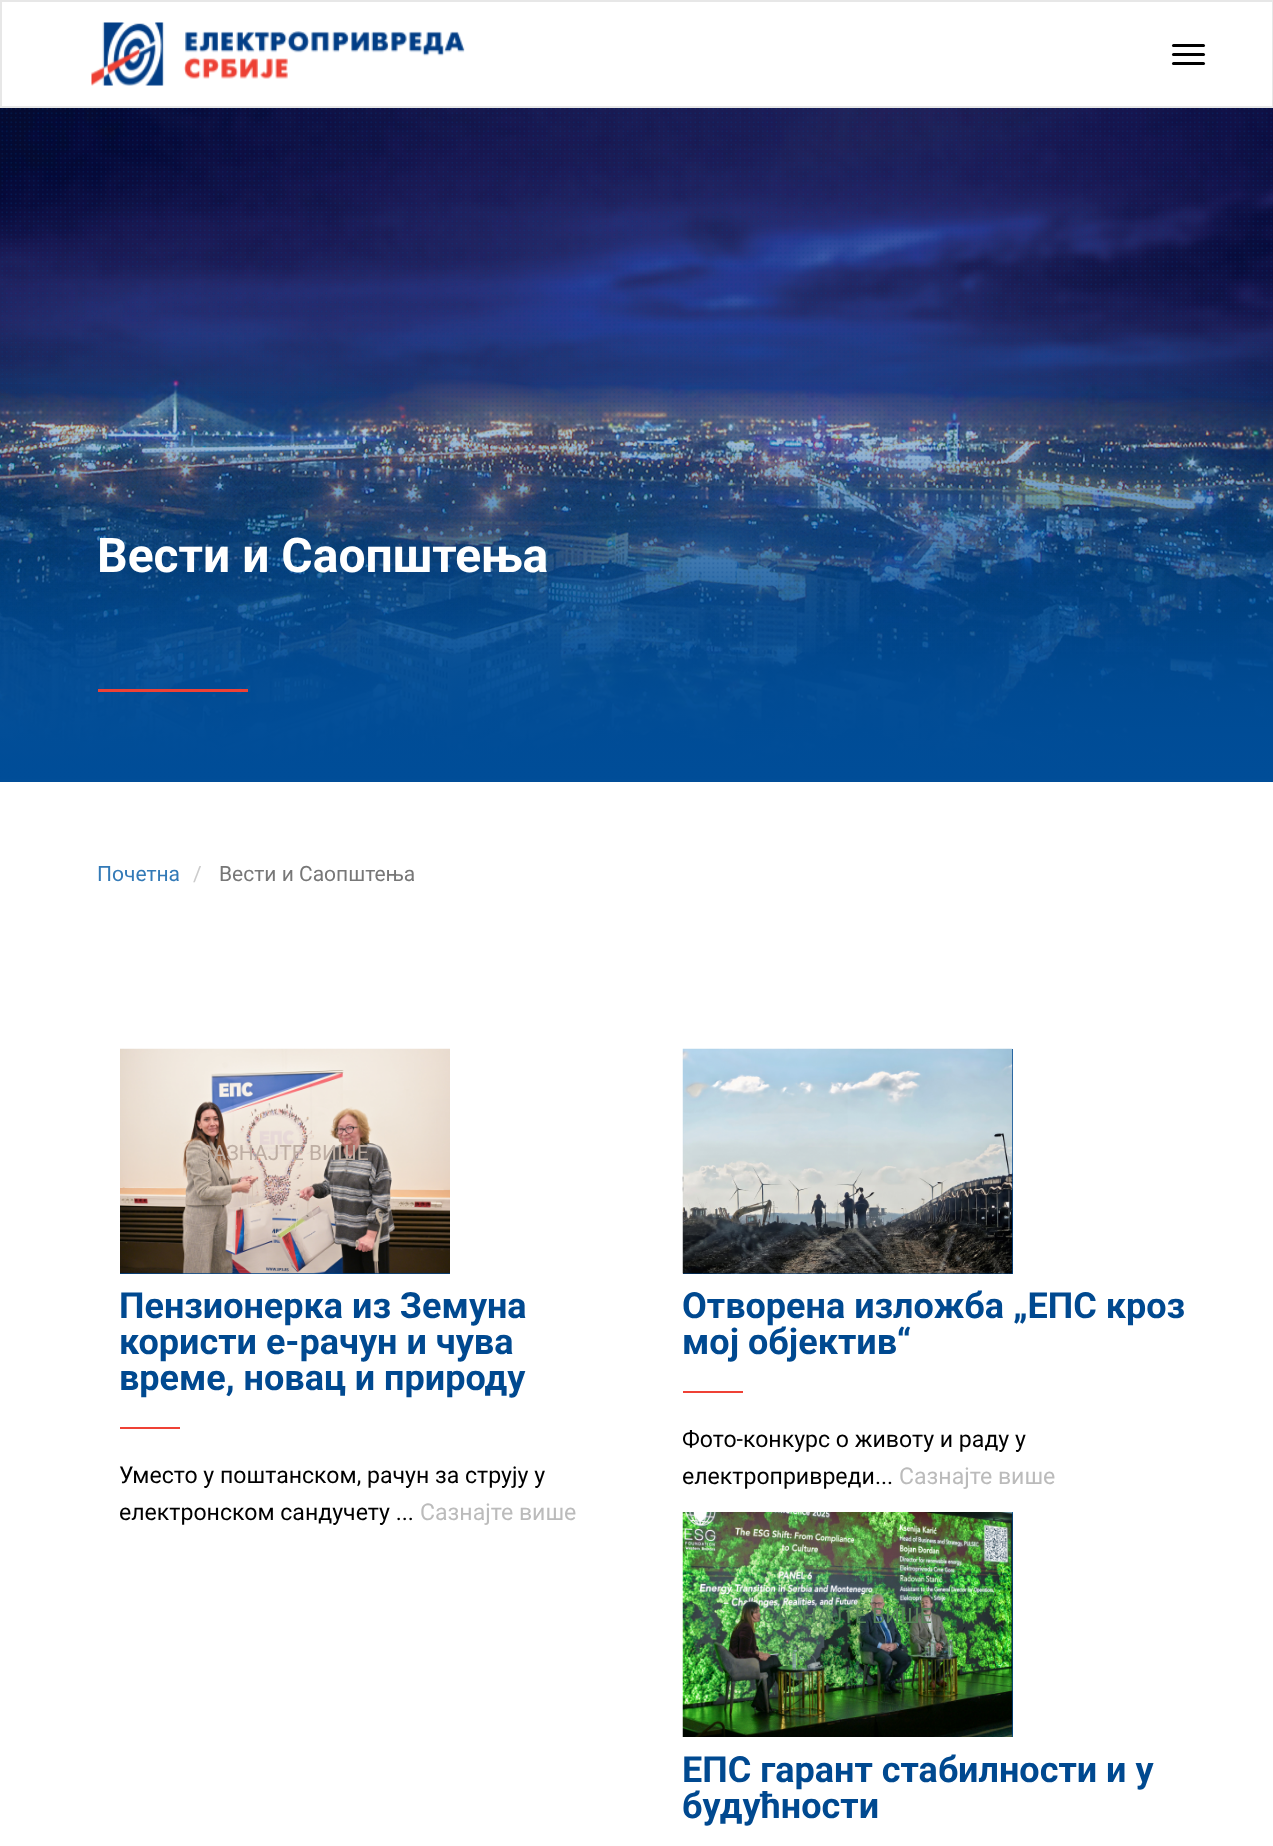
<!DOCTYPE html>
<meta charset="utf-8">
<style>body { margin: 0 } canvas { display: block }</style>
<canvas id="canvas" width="1273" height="1846"></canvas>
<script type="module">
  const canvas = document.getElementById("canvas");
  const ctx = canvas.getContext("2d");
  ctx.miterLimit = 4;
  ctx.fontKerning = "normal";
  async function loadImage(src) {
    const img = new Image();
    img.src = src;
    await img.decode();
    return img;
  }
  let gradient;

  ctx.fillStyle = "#ffffff";
  ctx.fillRect(0, 0, 1273, 1846);
  ctx.strokeStyle = "#e7e7e7";
  ctx.lineWidth = 2;
  ctx.strokeRect(1, 1, 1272, 106);
  ctx.drawImage(await loadImage("img1.png"), 91, 22, 374, 64);
  ctx.fillStyle = "#000000";
  ctx.beginPath();
  ctx.roundRect(1172, 44, 33, 3, 1.5);
  ctx.fill();
  ctx.beginPath();
  ctx.roundRect(1172, 53, 33, 3, 1.5);
  ctx.fill();
  ctx.beginPath();
  ctx.roundRect(1172, 62, 33, 3, 1.5);
  ctx.fill();
  ctx.drawImage(await loadImage("img2.png"), 0, 108, 1273, 671);
  gradient = ctx.createLinearGradient(637, 106, 637, 782);
  gradient.addColorStop(0.3, "rgba(0, 77, 152, 0)");
  gradient.addColorStop(0.31, "rgba(0, 77, 152, 0)");
  gradient.addColorStop(1, "#004d98");
  ctx.fillStyle = gradient;
  ctx.fillRect(0, 332, 1273, 450);
  ctx.drawImage(await loadImage("img3.png"), 1, 108, 1272, 546);
  ctx.font = "bold 48px Roboto";
  ctx.fillStyle = "#ffffff";
  ctx.fillText("Вести и Саопштења", 97, 572);
  ctx.fillStyle = "#ef4135";
  ctx.fillRect(98, 689, 150, 3);
  ctx.font = "21px Roboto";
  ctx.fillStyle = "#337ab7";
  ctx.fillText("Почетна", 97, 881);
  ctx.fillStyle = "#cccccc";
  ctx.fillText("/", 193, 881);
  ctx.fillStyle = "#777777";
  ctx.fillText("Вести и Саопштења", 219, 881);
  ctx.fillStyle = "#004990";
  ctx.fillRect(120, 1273, 330, 1);
  ctx.drawImage(await loadImage("img4.png"), 120, 1048, 330, 226);
  ctx.fillStyle = "#bdada2";
  ctx.fillText("САЗНАЈТЕ ВИШЕ", 199, 1160);
  ctx.font = "bold 36px Roboto";
  ctx.fillStyle = "#004990";
  ctx.fillText("Пензионерка из Земуна", 119, 1318);
  ctx.fillText("користи е-рачун и чува", 119, 1354);
  ctx.fillText("време, новац и природу", 119, 1390);
  ctx.fillStyle = "#ef4135";
  ctx.fillRect(120, 1427, 60, 2);
  ctx.font = "23.1px Roboto";
  ctx.fillStyle = "#000000";
  ctx.fillText("Уместо у поштанском, рачун за струју у", 119, 1483);
  ctx.fillText("електронском сандучету ...", 119, 1520);
  ctx.fillStyle = "#bbbbbb";
  ctx.fillText("Сазнајте више", 420, 1520);
  ctx.fillStyle = "#004990";
  ctx.fillRect(683, 1049, 330, 225);
  ctx.drawImage(await loadImage("img5.png"), 682, 1048, 331, 226);
  ctx.font = "bold 36px Roboto";
  ctx.fillText("Отворена изложба „ЕПС кроз", 682, 1318);
  ctx.fillText("мој објектив“", 682, 1354);
  ctx.fillStyle = "#ef4135";
  ctx.fillRect(683, 1391, 60, 2);
  ctx.font = "23.1px Roboto";
  ctx.fillStyle = "#000000";
  ctx.fillText("Фото-конкурс о животу и раду у", 682, 1447);
  ctx.fillText("електропривреди...", 682, 1484);
  ctx.fillStyle = "#bbbbbb";
  ctx.fillText("Сазнајте више", 899, 1484);
  ctx.fillStyle = "#004990";
  ctx.fillRect(1012, 1512, 1, 225);
  ctx.drawImage(await loadImage("img6.png"), 682, 1512, 331, 225);
  ctx.font = "21px Roboto";
  ctx.fillStyle = "#568359";
  ctx.fillText("САЗНАЈТЕ ВИШЕ", 762, 1623);
  ctx.font = "bold 36px Roboto";
  ctx.fillStyle = "#004990";
  ctx.fillText("ЕПС гарант стабилности и у", 682, 1782);
  ctx.fillText("будућности", 682, 1818);
</script>
